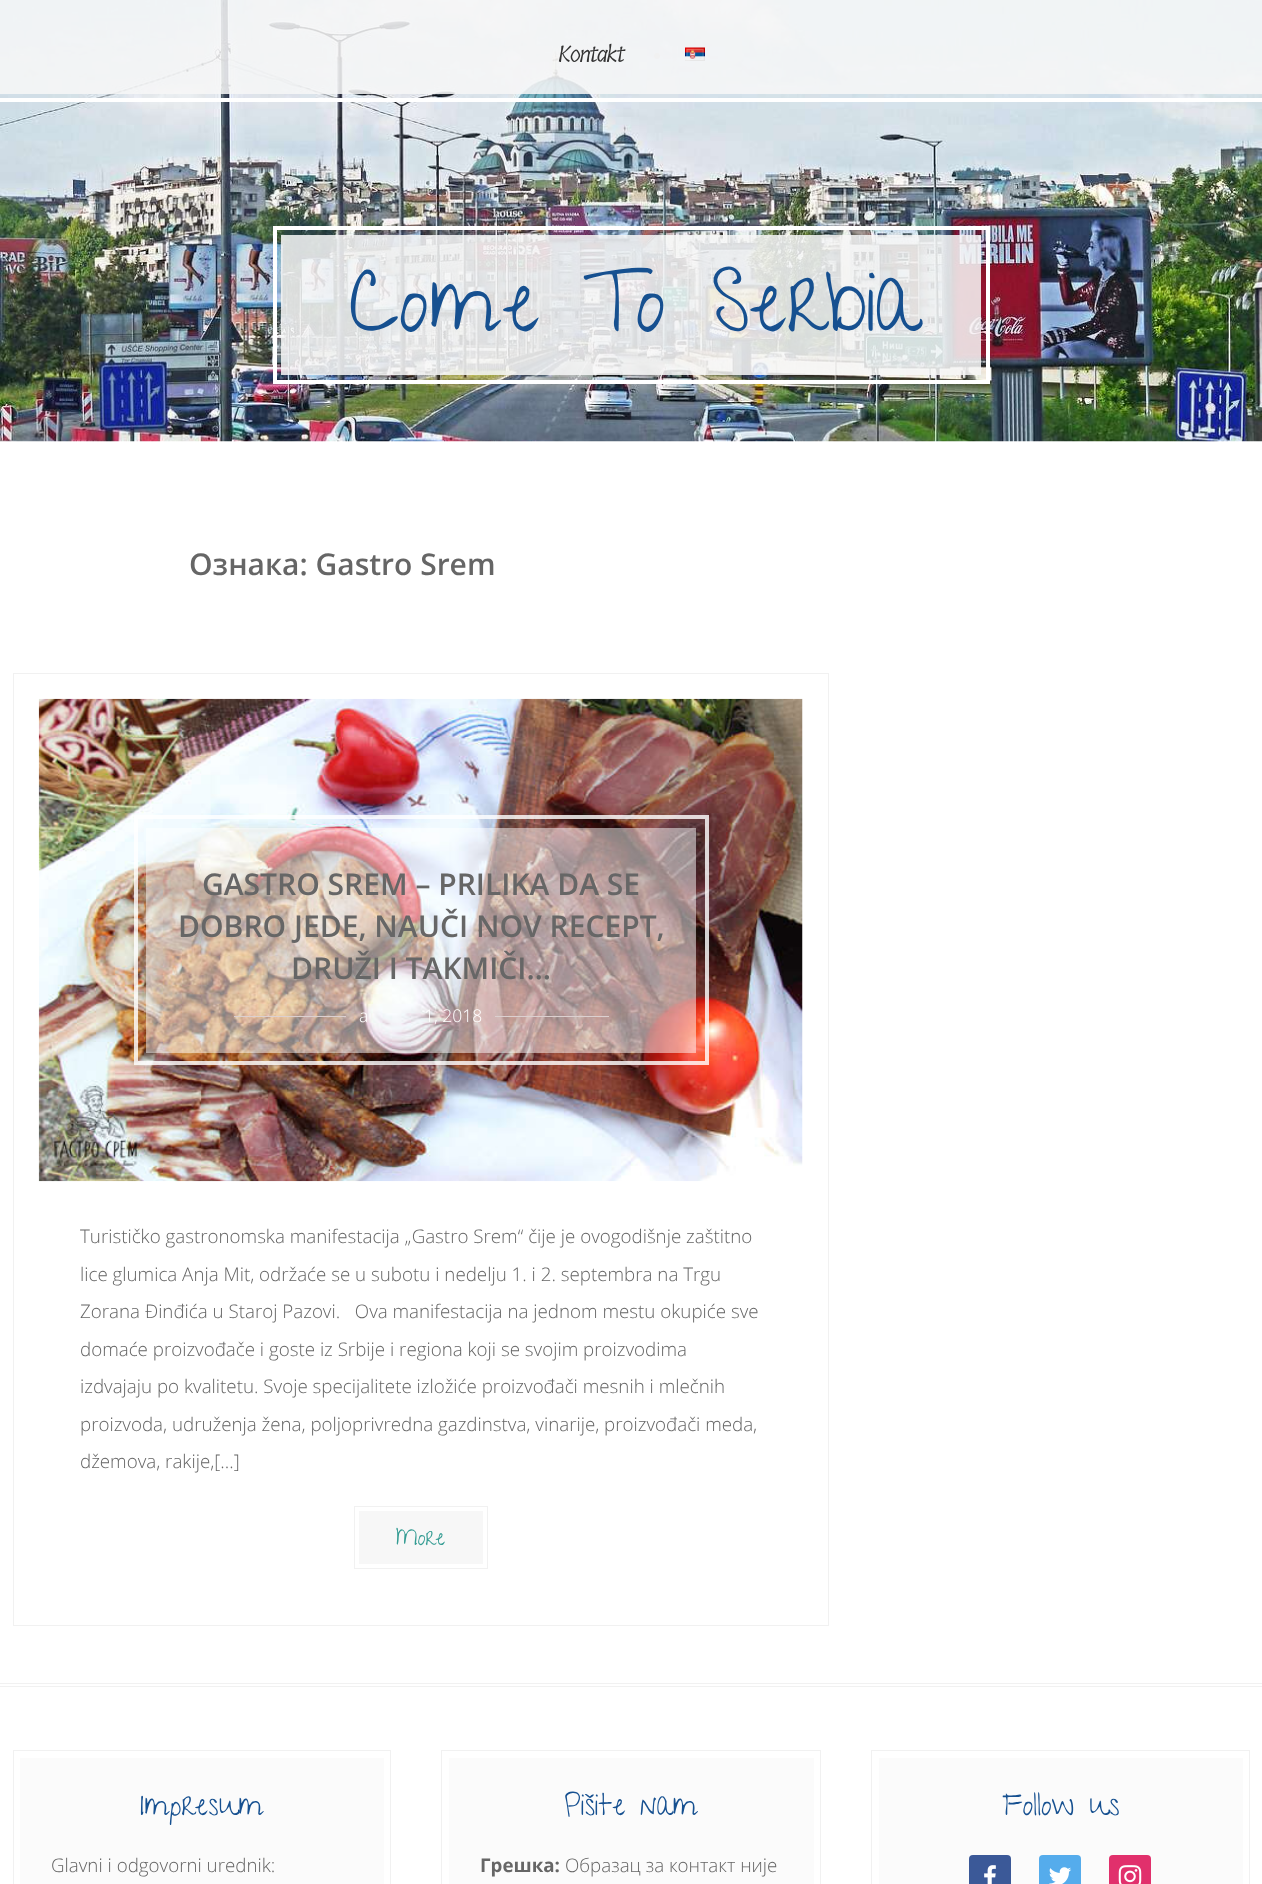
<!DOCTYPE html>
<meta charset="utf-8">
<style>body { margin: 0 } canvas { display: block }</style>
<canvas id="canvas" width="1262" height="1884"></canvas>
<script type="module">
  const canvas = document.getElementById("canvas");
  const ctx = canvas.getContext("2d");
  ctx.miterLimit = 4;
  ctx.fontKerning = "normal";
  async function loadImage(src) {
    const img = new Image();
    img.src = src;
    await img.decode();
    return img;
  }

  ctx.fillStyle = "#ffffff";
  ctx.fillRect(0, 0, 1262, 1884);
  ctx.drawImage(await loadImage("img1.png"), 0, 0, 1262, 442);
  ctx.fillStyle = "rgba(247, 247, 247, 0.86)";
  ctx.fillRect(0, 0, 1262, 94);
  ctx.letterSpacing = "-1.25px";
  ctx.font = "22.5px Tillana";
  ctx.fillStyle = "#333333";
  ctx.fillText("Kontakt", 558, 62);
  ctx.fillStyle = "#f1f1f1";
  ctx.beginPath();
  ctx.arc(657, 56, 3, 0, Math.PI * 2);
  ctx.fill();
  ctx.drawImage(await loadImage("img2.png"), 685, 47, 20, 14);
  ctx.fillStyle = "#ffffff";
  ctx.fillRect(0, 98, 1262, 4);
  ctx.fillStyle = "rgba(247, 247, 247, 0.86)";
  ctx.fillRect(281, 235, 700, 140);
  ctx.strokeStyle = "#ffffff";
  ctx.lineWidth = 4;
  ctx.strokeRect(275, 228, 713, 154);
  ctx.letterSpacing = "0px";
  ctx.font = "85px Give You Glory";
  ctx.fillStyle = "#165090";
  ctx.fillText("Come To Serbia", 349, 331);
  ctx.fillStyle = "#f1f1f1";
  ctx.fillRect(0, 1683, 1262, 1);
  ctx.fillRect(0, 1686, 1262, 1);
  ctx.font = "600 30px Open Sans";
  ctx.fillStyle = "#666666";
  ctx.fillText("Ознака: Gastro Srem", 189, 575);
  ctx.strokeStyle = "#f1f1f1";
  ctx.lineWidth = 1;
  ctx.strokeRect(13.5, 673.5, 815, 952);
  ctx.drawImage(await loadImage("img3.png"), 38, 698, 765, 484);
  ctx.fillStyle = "rgba(255, 255, 255, 0.5)";
  ctx.fillRect(146, 828, 550, 225);
  ctx.strokeStyle = "rgba(255, 255, 255, 0.81)";
  ctx.lineWidth = 4;
  ctx.strokeRect(136, 817, 571, 246);
  ctx.fillStyle = "#666666";
  ctx.fillText("GASTRO SREM – PRILIKA DA SE", 202, 895);
  ctx.fillText("DOBRO JEDE, NAUČI NOV RECEPT,", 178, 937);
  ctx.fillText("DRUŽI I TAKMIČI…", 291, 979);
  ctx.fillStyle = "#dcd0d0";
  ctx.fillRect(234, 1016, 112, 1);
  ctx.font = "300 17.5px Open Sans";
  ctx.fillStyle = "#ffffff";
  ctx.fillText("а", 359, 1022);
  ctx.fillText("1, 2018", 424, 1022);
  ctx.fillStyle = "#dcd0d0";
  ctx.fillRect(495, 1016, 114, 1);
  ctx.font = "300 18.75px Open Sans";
  ctx.fillStyle = "#666666";
  ctx.fillText("Turističko gastronomska manifestacija „Gastro Srem“ čije je ovogodišnje zaštitno", 80, 1243);
  ctx.fillText("lice glumica Anja Mit, održaće se u subotu i nedelju 1. i 2. septembra na Trgu", 80, 1281);
  ctx.fillText("Zorana Đinđića u Staroj Pazovi.   Ova manifestacija na jednom mestu okupiće sve", 80, 1318);
  ctx.fillText("domaće proizvođače i goste iz Srbije i regiona koji se svojim proizvodima", 80, 1356);
  ctx.fillText("izdvajaju po kvalitetu. Svoje specijalitete izložiće proizvođači mesnih i mlečnih", 80, 1393);
  ctx.fillText("proizvoda, udruženja žena, poljoprivredna gazdinstva, vinarije, proizvođači meda,", 80, 1431);
  ctx.fillText("džemova, rakije,[…]", 80, 1468);
  ctx.fillStyle = "#f7f7f7";
  ctx.fillRect(359, 1511, 124, 53);
  ctx.strokeStyle = "#f1f1f1";
  ctx.lineWidth = 1;
  ctx.strokeRect(354.5, 1506.5, 133, 62);
  ctx.font = "22.5px Give You Glory";
  ctx.fillStyle = "#349c93";
  ctx.fillText("More", 396, 1545);
  ctx.strokeRect(13.5, 1750.5, 377, 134);
  ctx.fillStyle = "#fbfbfb";
  ctx.fillRect(20, 1758, 364, 126);
  ctx.font = "30px Give You Glory";
  ctx.fillStyle = "#165090";
  ctx.fillText("Impresum", 140, 1815);
  ctx.font = "300 18.75px Open Sans";
  ctx.fillStyle = "#666666";
  ctx.fillText("Glavni i odgovorni urednik:", 51, 1872);
  ctx.strokeRect(441.5, 1750.5, 379, 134);
  ctx.fillStyle = "#fbfbfb";
  ctx.fillRect(449, 1758, 365, 126);
  ctx.font = "30px Give You Glory";
  ctx.fillStyle = "#165090";
  ctx.fillText("Pišite nam", 564, 1815);
  ctx.font = "bold 18.75px Open Sans";
  ctx.fillStyle = "#666666";
  ctx.fillText("Грешка:", 480, 1872);
  ctx.font = "300 18.75px Open Sans";
  ctx.fillText("Образац за контакт није", 565, 1872);
  ctx.strokeRect(871.5, 1750.5, 378, 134);
  ctx.fillStyle = "#fbfbfb";
  ctx.fillRect(879, 1758, 364, 126);
  ctx.font = "30px Give You Glory";
  ctx.fillStyle = "#165090";
  ctx.fillText("Follow us", 1002, 1815);
  ctx.fillStyle = "#3b5998";
  ctx.beginPath();
  ctx.roundRect(969, 1855, 42, 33, 4);
  ctx.fill();
  ctx.drawImage(await loadImage("img4.png"), 984, 1865, 12, 19);
  ctx.fillStyle = "#55acec";
  ctx.beginPath();
  ctx.roundRect(1039, 1855, 42, 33, 4);
  ctx.fill();
  ctx.drawImage(await loadImage("img5.png"), 1049, 1867, 23, 17);
  ctx.fillStyle = "#e1306c";
  ctx.beginPath();
  ctx.roundRect(1109, 1855, 42, 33, 4);
  ctx.fill();
  ctx.drawImage(await loadImage("img6.png"), 1118, 1865, 24, 19);
</script>
